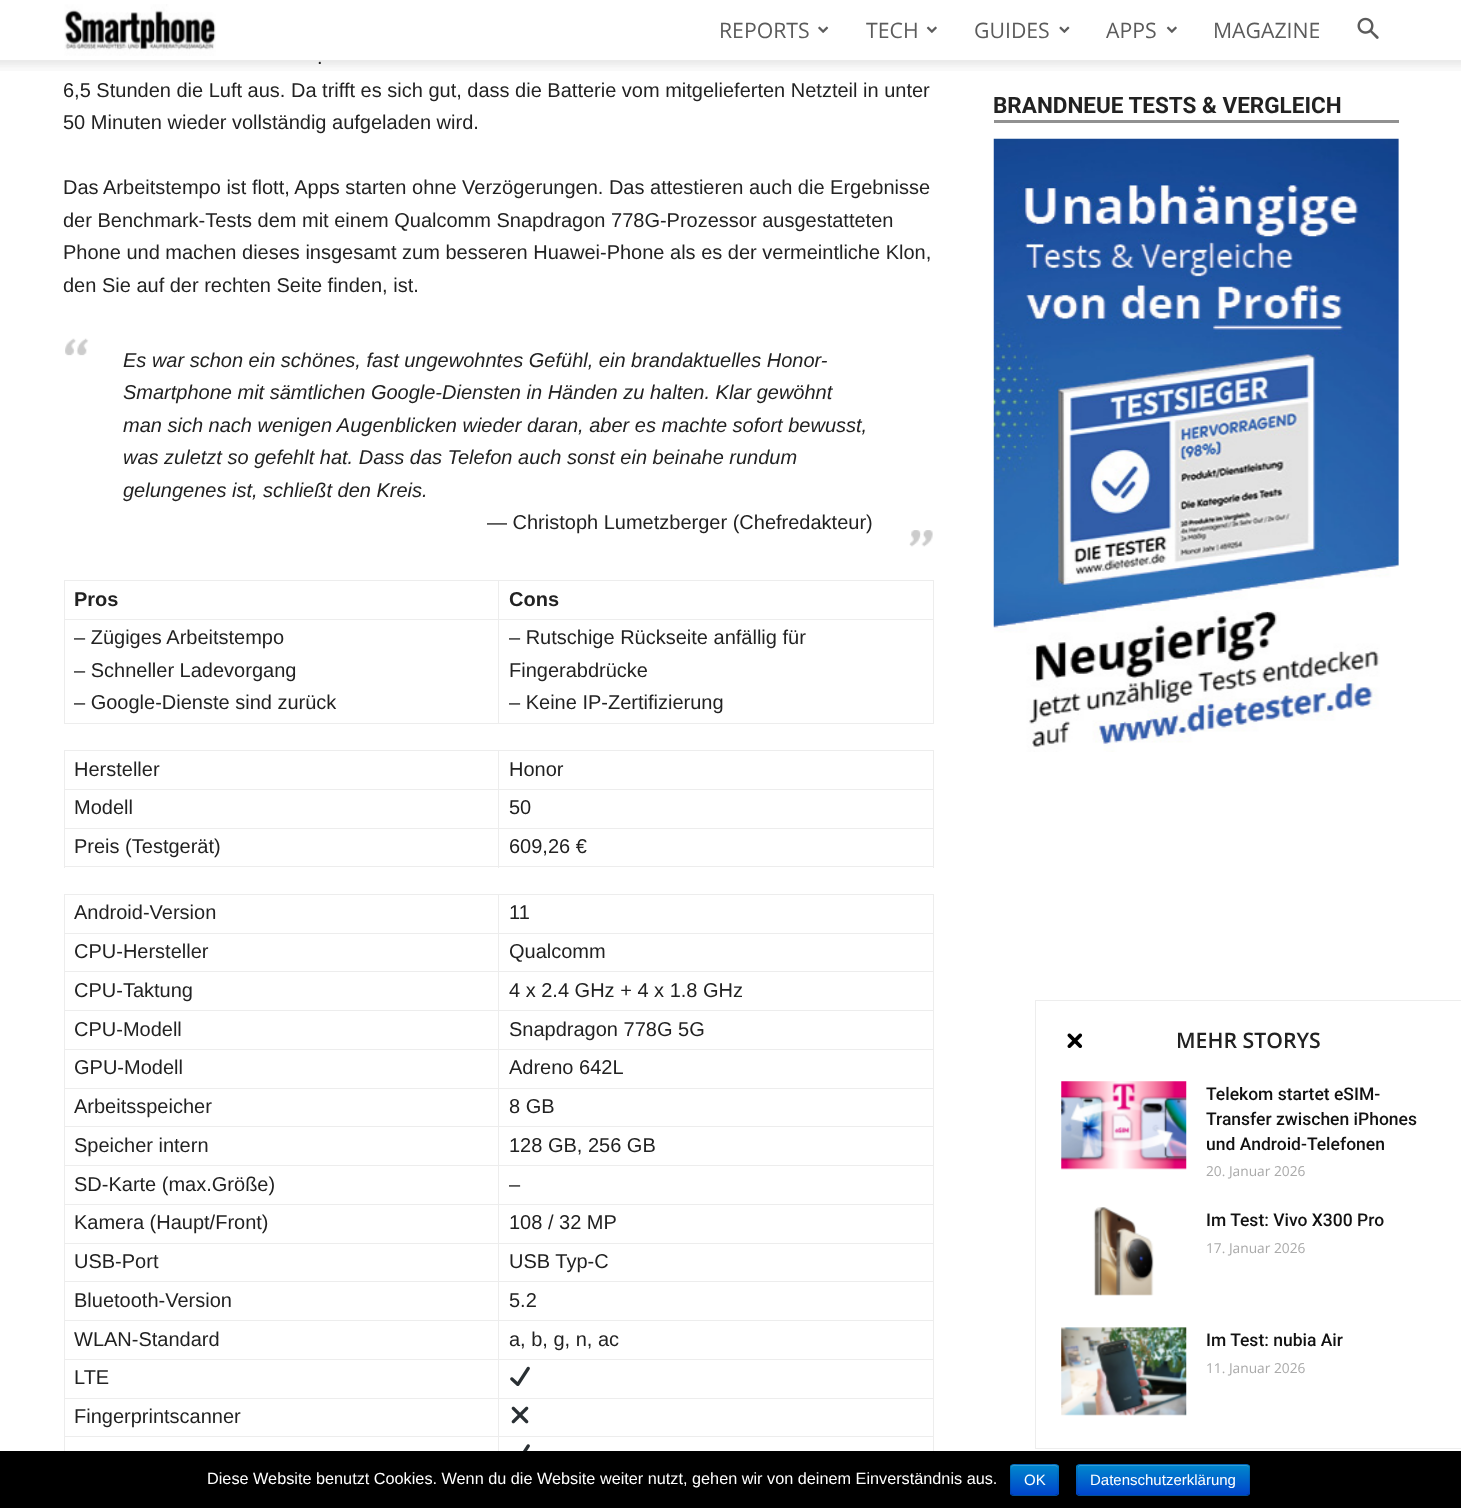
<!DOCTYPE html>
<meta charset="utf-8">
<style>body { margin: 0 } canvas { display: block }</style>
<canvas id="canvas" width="1461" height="1508"></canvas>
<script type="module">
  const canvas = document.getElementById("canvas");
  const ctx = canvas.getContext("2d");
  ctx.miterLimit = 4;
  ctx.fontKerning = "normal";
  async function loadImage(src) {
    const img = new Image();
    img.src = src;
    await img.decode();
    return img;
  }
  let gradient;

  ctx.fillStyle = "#ffffff";
  ctx.fillRect(0, 0, 1461, 1508);
  ctx.drawImage(await loadImage("img1.png"), 64, 4, 152, 52);
  ctx.font = "21.25px Open Sans";
  ctx.fillStyle = "#5b5b5b";
  ctx.fillText("REPORTS", 719, 38);
  ctx.drawImage(await loadImage("img2.png"), 818, 26, 11, 7);
  ctx.fillText("TECH", 866, 38);
  ctx.drawImage(await loadImage("img3.png"), 926, 26, 11, 7);
  ctx.fillText("GUIDES", 974, 38);
  ctx.drawImage(await loadImage("img4.png"), 1059, 26, 11, 7);
  ctx.fillText("APPS", 1106, 38);
  ctx.drawImage(await loadImage("img3.png"), 1166, 26, 11, 7);
  ctx.fillText("MAGAZINE", 1213, 38);
  ctx.drawImage(await loadImage("img5.png"), 1357, 17, 22, 22);
  ctx.font = "20px Liberation Sans";
  ctx.fillStyle = "#222222";
  ctx.fillText(".", 317, 64);
  ctx.drawImage(await loadImage("img6.png"), 0, 60, 1461, 11);
  ctx.fillText("6,5 Stunden die Luft aus. Da trifft es sich gut, dass die Batterie vom mitgelieferten Netzteil in unter", 63, 97);
  ctx.fillText("50 Minuten wieder vollständig aufgeladen wird.", 63, 129);
  ctx.fillText("Das Arbeitstempo ist flott, Apps starten ohne Verzögerungen. Das attestieren auch die Ergebnisse", 63, 194);
  ctx.fillText("der Benchmark-Tests dem mit einem Qualcomm Snapdragon 778G-Prozessor ausgestatteten", 63, 227);
  ctx.fillText("Phone und machen dieses insgesamt zum besseren Huawei-Phone als es der vermeintliche Klon,", 63, 259);
  ctx.fillText("den Sie auf der rechten Seite finden, ist.", 63, 292);
  ctx.drawImage(await loadImage("img7.png"), 65, 338, 24, 18);
  ctx.font = "italic 20px Liberation Sans";
  ctx.fillText("Es war schon ein schönes, fast ungewohntes Gefühl, ein brandaktuelles Honor-", 123, 367);
  ctx.fillText("Smartphone mit sämtlichen Google-Diensten in Händen zu halten. Klar gewöhnt", 123, 399);
  ctx.fillText("man sich nach wenigen Augenblicken wieder daran, aber es machte sofort bewusst,", 123, 432);
  ctx.fillText("was zuletzt so gefehlt hat. Dass das Telefon auch sonst ein beinahe rundum", 123, 464);
  ctx.fillText("gelungenes ist, schließt den Kreis.", 123, 497);
  ctx.font = "20px Liberation Sans";
  ctx.fillText("— Christoph Lumetzberger (Chefredakteur)", 487, 529);
  ctx.drawImage(await loadImage("img8.png"), 909, 530, 24, 17);
  ctx.fillStyle = "#ededed";
  ctx.fillRect(498, 580, 436, 1);
  ctx.fillRect(498, 619, 436, 1);
  ctx.fillRect(933, 619, 1, 105);
  ctx.fillRect(498, 723, 436, 1);
  ctx.fillRect(498, 619, 1, 105);
  ctx.fillRect(64, 619, 435, 1);
  ctx.fillRect(498, 580, 1, 40);
  ctx.fillRect(64, 580, 435, 1);
  ctx.fillRect(64, 723, 435, 1);
  ctx.fillRect(64, 619, 1, 105);
  ctx.fillRect(64, 580, 1, 40);
  ctx.font = "bold 20px Liberation Sans";
  ctx.fillStyle = "#222222";
  ctx.fillText("Pros", 74, 606);
  ctx.fillStyle = "#ededed";
  ctx.fillRect(933, 580, 1, 40);
  ctx.fillStyle = "#222222";
  ctx.fillText("Cons", 509, 606);
  ctx.font = "20px Liberation Sans";
  ctx.fillText("– Zügiges Arbeitstempo", 74, 644);
  ctx.fillText("– Schneller Ladevorgang", 74, 677);
  ctx.fillText("– Google-Dienste sind zurück", 74, 709);
  ctx.fillText("– Rutschige Rückseite anfällig für", 509, 644);
  ctx.fillText("Fingerabdrücke", 509, 677);
  ctx.fillText("– Keine IP-Zertifizierung", 509, 709);
  ctx.fillStyle = "#ededed";
  ctx.fillRect(498, 750, 436, 1);
  ctx.fillRect(498, 789, 436, 1);
  ctx.fillRect(498, 828, 436, 1);
  ctx.fillRect(933, 828, 1, 40);
  ctx.fillRect(498, 866, 436, 1);
  ctx.fillRect(498, 828, 1, 40);
  ctx.fillRect(64, 828, 435, 1);
  ctx.fillRect(498, 789, 1, 40);
  ctx.fillRect(64, 789, 435, 1);
  ctx.fillRect(498, 750, 1, 40);
  ctx.fillRect(64, 750, 435, 1);
  ctx.fillRect(64, 866, 435, 1);
  ctx.fillRect(64, 828, 1, 40);
  ctx.fillRect(64, 789, 1, 40);
  ctx.fillRect(64, 750, 1, 40);
  ctx.fillStyle = "#222222";
  ctx.fillText("Hersteller", 74, 776);
  ctx.fillStyle = "#ededed";
  ctx.fillRect(933, 789, 1, 40);
  ctx.fillRect(933, 750, 1, 40);
  ctx.fillStyle = "#222222";
  ctx.fillText("Honor", 509, 776);
  ctx.fillText("Modell", 74, 814);
  ctx.fillText("50", 509, 814);
  ctx.fillText("Preis (Testgerät)", 74, 853);
  ctx.fillText("609,26 €", 509, 853);
  ctx.fillStyle = "#ededed";
  ctx.fillRect(498, 894, 436, 1);
  ctx.fillRect(498, 933, 436, 1);
  ctx.fillRect(498, 971, 436, 1);
  ctx.fillRect(498, 1010, 436, 1);
  ctx.fillRect(498, 1049, 436, 1);
  ctx.fillRect(498, 1088, 436, 1);
  ctx.fillRect(498, 1126, 436, 1);
  ctx.fillRect(498, 1165, 436, 1);
  ctx.fillRect(498, 1204, 436, 1);
  ctx.fillRect(498, 1243, 436, 1);
  ctx.fillRect(498, 1281, 436, 1);
  ctx.fillRect(498, 1320, 436, 1);
  ctx.fillRect(498, 1359, 436, 1);
  ctx.fillRect(498, 1398, 436, 1);
  ctx.fillRect(498, 1436, 436, 1);
  ctx.fillRect(498, 1436, 1, 15);
  ctx.fillRect(64, 1436, 435, 1);
  ctx.fillRect(498, 1398, 1, 40);
  ctx.fillRect(64, 1398, 435, 1);
  ctx.fillRect(498, 1359, 1, 40);
  ctx.fillRect(64, 1359, 435, 1);
  ctx.fillRect(498, 1320, 1, 40);
  ctx.fillRect(64, 1320, 435, 1);
  ctx.fillRect(498, 1281, 1, 40);
  ctx.fillRect(64, 1281, 435, 1);
  ctx.fillRect(498, 1243, 1, 40);
  ctx.fillRect(64, 1243, 435, 1);
  ctx.fillRect(498, 1204, 1, 40);
  ctx.fillRect(64, 1204, 435, 1);
  ctx.fillRect(498, 1165, 1, 40);
  ctx.fillRect(64, 1165, 435, 1);
  ctx.fillRect(498, 1126, 1, 40);
  ctx.fillRect(64, 1126, 435, 1);
  ctx.fillRect(498, 1088, 1, 40);
  ctx.fillRect(64, 1088, 435, 1);
  ctx.fillRect(498, 1049, 1, 40);
  ctx.fillRect(64, 1049, 435, 1);
  ctx.fillRect(498, 1010, 1, 40);
  ctx.fillRect(64, 1010, 435, 1);
  ctx.fillRect(498, 971, 1, 40);
  ctx.fillRect(64, 971, 435, 1);
  ctx.fillRect(498, 933, 1, 40);
  ctx.fillRect(64, 933, 435, 1);
  ctx.fillRect(498, 894, 1, 40);
  ctx.fillRect(64, 894, 435, 1);
  ctx.fillRect(64, 1436, 1, 15);
  ctx.fillRect(64, 1398, 1, 40);
  ctx.fillRect(64, 1359, 1, 40);
  ctx.fillRect(64, 1320, 1, 40);
  ctx.fillRect(64, 1281, 1, 40);
  ctx.fillRect(64, 1243, 1, 40);
  ctx.fillRect(64, 1204, 1, 40);
  ctx.fillRect(64, 1165, 1, 40);
  ctx.fillRect(64, 1126, 1, 40);
  ctx.fillRect(64, 1088, 1, 40);
  ctx.fillRect(64, 1049, 1, 40);
  ctx.fillRect(64, 1010, 1, 40);
  ctx.fillRect(64, 971, 1, 40);
  ctx.fillRect(64, 933, 1, 40);
  ctx.fillRect(64, 894, 1, 40);
  ctx.fillStyle = "#222222";
  ctx.fillText("Android-Version", 74, 919);
  ctx.fillStyle = "#ededed";
  ctx.fillRect(933, 1436, 1, 15);
  ctx.fillRect(933, 1398, 1, 40);
  ctx.fillRect(933, 1359, 1, 40);
  ctx.fillRect(933, 1320, 1, 40);
  ctx.fillRect(933, 1281, 1, 40);
  ctx.fillRect(933, 1243, 1, 40);
  ctx.fillRect(933, 1204, 1, 40);
  ctx.fillRect(933, 1165, 1, 40);
  ctx.fillRect(933, 1126, 1, 40);
  ctx.fillRect(933, 1088, 1, 40);
  ctx.fillRect(933, 1049, 1, 40);
  ctx.fillRect(933, 1010, 1, 40);
  ctx.fillRect(933, 971, 1, 40);
  ctx.fillRect(933, 933, 1, 40);
  ctx.fillRect(933, 894, 1, 40);
  ctx.fillStyle = "#222222";
  ctx.fillText("11", 509, 919);
  ctx.fillText("CPU-Hersteller", 74, 958);
  ctx.fillText("Qualcomm", 509, 958);
  ctx.fillText("CPU-Taktung", 74, 997);
  ctx.fillText("4 x 2.4 GHz + 4 x 1.8 GHz", 509, 997);
  ctx.fillText("CPU-Modell", 74, 1036);
  ctx.fillText("Snapdragon 778G 5G", 509, 1036);
  ctx.fillText("GPU-Modell", 74, 1074);
  ctx.fillText("Adreno 642L", 509, 1074);
  ctx.fillText("Arbeitsspeicher", 74, 1113);
  ctx.fillText("8 GB", 509, 1113);
  ctx.fillText("Speicher intern", 74, 1152);
  ctx.fillText("128 GB, 256 GB", 509, 1152);
  ctx.fillText("SD-Karte (max.Größe)", 74, 1191);
  ctx.fillText("–", 509, 1191);
  ctx.fillText("Kamera (Haupt/Front)", 74, 1229);
  ctx.fillText("108 / 32 MP", 509, 1229);
  ctx.fillText("USB-Port", 74, 1268);
  ctx.fillText("USB Typ-C", 509, 1268);
  ctx.fillText("Bluetooth-Version", 74, 1307);
  ctx.fillText("5.2", 509, 1307);
  ctx.fillText("WLAN-Standard", 74, 1346);
  ctx.fillText("a, b, g, n, ac", 509, 1346);
  ctx.fillText("LTE", 74, 1384);
  ctx.drawImage(await loadImage("img9.png"), 510, 1366, 20, 20);
  ctx.fillText("Fingerprintscanner", 74, 1423);
  ctx.drawImage(await loadImage("img10.png"), 511, 1406, 18, 18);
  ctx.drawImage(await loadImage("img11.png"), 523, 1444, 7, 7);
  ctx.fillStyle = "#919191";
  ctx.fillRect(994, 120, 405, 3);
  ctx.font = "bold 22.5px Roboto";
  ctx.fillStyle = "#222222";
  ctx.fillText("BRANDNEUE TESTS & VERGLEICH", 993, 113);
  ctx.drawImage(await loadImage("img12.png"), 993, 138, 406, 614);
  ctx.fillStyle = "#ededed";
  ctx.fillRect(1035, 1000, 426, 1);
  ctx.fillRect(1035, 1448, 426, 1);
  ctx.fillRect(1035, 1000, 1, 449);
  ctx.drawImage(await loadImage("img13.png"), 1067, 1033, 16, 15);
  ctx.font = "600 21.25px Open Sans";
  ctx.fillStyle = "#222222";
  ctx.fillText("MEHR STORYS", 1176, 1048);
  ctx.drawImage(await loadImage("img14.png"), 1061, 1081, 126, 89);
  ctx.font = "500 17.5px Roboto";
  ctx.fillStyle = "#111111";
  ctx.fillText("Telekom startet eSIM-", 1206, 1100);
  ctx.fillText("Transfer zwischen iPhones", 1206, 1125);
  ctx.fillText("und Android-Telefonen", 1206, 1150);
  ctx.font = "13.75px Open Sans";
  ctx.fillStyle = "#aaaaaa";
  ctx.fillText("20. Januar 2026", 1206, 1176);
  ctx.drawImage(await loadImage("img15.png"), 1093, 1207, 61, 89);
  ctx.font = "500 17.5px Roboto";
  ctx.fillStyle = "#111111";
  ctx.fillText("Im Test: Vivo X300 Pro", 1206, 1226);
  ctx.font = "13.75px Open Sans";
  ctx.fillStyle = "#aaaaaa";
  ctx.fillText("17. Januar 2026", 1206, 1253);
  ctx.drawImage(await loadImage("img16.png"), 1061, 1327, 126, 89);
  ctx.font = "500 17.5px Roboto";
  ctx.fillStyle = "#111111";
  ctx.fillText("Im Test: nubia Air", 1206, 1346);
  ctx.font = "13.75px Open Sans";
  ctx.fillStyle = "#aaaaaa";
  ctx.fillText("11. Januar 2026", 1206, 1373);
  ctx.fillStyle = "#000000";
  ctx.fillRect(0, 1451, 1461, 57);
  ctx.font = "16.25px Liberation Sans";
  ctx.fillStyle = "#ffffff";
  ctx.fillText("Diese Website benutzt Cookies. Wenn du die Website weiter nutzt, gehen wir von deinem Einverständnis aus.", 207, 1484);
  ctx.fillStyle = "#006dcc";
  ctx.beginPath();
  ctx.roundRect(1010, 1464, 49, 32, 4);
  ctx.fill();
  ctx.save();
  ctx.beginPath();
  ctx.roundRect(1010, 1464, 49, 32, 4);
  ctx.clip();
  gradient = ctx.createLinearGradient(1034, 1465, 1034, 1495);
  gradient.addColorStop(0, "#0088cc");
  gradient.addColorStop(1, "#0044cc");
  ctx.fillStyle = gradient;
  ctx.fillRect(1010, 1465, 49, 30);
  ctx.restore();
  ctx.fillStyle = "#339fd6";
  ctx.beginPath();
  ctx.moveTo(1014, 1466);
  ctx.lineTo(1055, 1466);
  ctx.bezierCurveTo(1056, 1466, 1058, 1467, 1058, 1469);
  ctx.bezierCurveTo(1058, 1463, 1054, 1465, 1048, 1465);
  ctx.lineTo(1020, 1465);
  ctx.bezierCurveTo(1015, 1465, 1011, 1463, 1011, 1469);
  ctx.bezierCurveTo(1011, 1467, 1012, 1466, 1014, 1466);
  ctx.closePath();
  ctx.fill();
  ctx.beginPath();
  ctx.moveTo(1057, 1494.5);
  ctx.lineTo(1055, 1495.5);
  ctx.lineTo(1014, 1495.5);
  ctx.lineTo(1011.5, 1494.5);
  ctx.strokeStyle = "rgba(0, 0, 0, 0.25)";
  ctx.lineWidth = 1.2;
  ctx.stroke();
  ctx.beginPath();
  ctx.moveTo(1011.5, 1494.5);
  ctx.bezierCurveTo(1009.5, 1492.5, 1010.5, 1483, 1010.5, 1480);
  ctx.bezierCurveTo(1010.5, 1465, 1007, 1464.5, 1020.5, 1464.5);
  ctx.lineTo(1048, 1464.5);
  ctx.bezierCurveTo(1061.5, 1464.5, 1058, 1465, 1058, 1480);
  ctx.bezierCurveTo(1058, 1483, 1059.5, 1492.5, 1057, 1494.5);
  ctx.strokeStyle = "rgba(0, 0, 0, 0.1)";
  ctx.stroke();
  ctx.font = "15px Liberation Sans";
  ctx.fillStyle = "#ffffff";
  ctx.fillText("OK", 1024, 1485);
  ctx.fillStyle = "#006dcc";
  ctx.beginPath();
  ctx.roundRect(1076, 1464, 174, 32, 4);
  ctx.fill();
  ctx.save();
  ctx.beginPath();
  ctx.roundRect(1076, 1464, 174, 32, 4);
  ctx.clip();
  gradient = ctx.createLinearGradient(1163, 1465, 1163, 1495);
  gradient.addColorStop(0, "#0088cc");
  gradient.addColorStop(1, "#0044cc");
  ctx.fillStyle = gradient;
  ctx.fillRect(1076, 1465, 174, 30);
  ctx.restore();
  ctx.fillStyle = "#339fd6";
  ctx.beginPath();
  ctx.moveTo(1080, 1466);
  ctx.lineTo(1246, 1466);
  ctx.bezierCurveTo(1248, 1466, 1249, 1467, 1249, 1469);
  ctx.lineTo(1249, 1468);
  ctx.bezierCurveTo(1249, 1466, 1248, 1465, 1246, 1465);
  ctx.lineTo(1080, 1465);
  ctx.bezierCurveTo(1079, 1465, 1078, 1466, 1078, 1468);
  ctx.lineTo(1078, 1469);
  ctx.bezierCurveTo(1078, 1467, 1079, 1466, 1080, 1466);
  ctx.closePath();
  ctx.fill();
  ctx.beginPath();
  ctx.moveTo(1248.5, 1494.5);
  ctx.lineTo(1246, 1495.5);
  ctx.lineTo(1080, 1495.5);
  ctx.lineTo(1078, 1494.5);
  ctx.strokeStyle = "rgba(0, 0, 0, 0.25)";
  ctx.stroke();
  ctx.beginPath();
  ctx.moveTo(1078, 1494.5);
  ctx.bezierCurveTo(1075.5, 1492.5, 1077, 1483, 1077, 1480);
  ctx.lineTo(1077, 1471.5);
  ctx.bezierCurveTo(1077, 1469.5, 1076, 1464.5, 1080, 1464.5);
  ctx.lineTo(1246, 1464.5);
  ctx.bezierCurveTo(1250, 1464.5, 1249.5, 1469.5, 1249.5, 1471.5);
  ctx.lineTo(1249.5, 1480);
  ctx.bezierCurveTo(1249.5, 1483, 1250.5, 1492.5, 1248.5, 1494.5);
  ctx.strokeStyle = "rgba(0, 0, 0, 0.1)";
  ctx.stroke();
  ctx.fillStyle = "#ffffff";
  ctx.fillText("Datenschutzerklärung", 1090, 1485);
</script>
